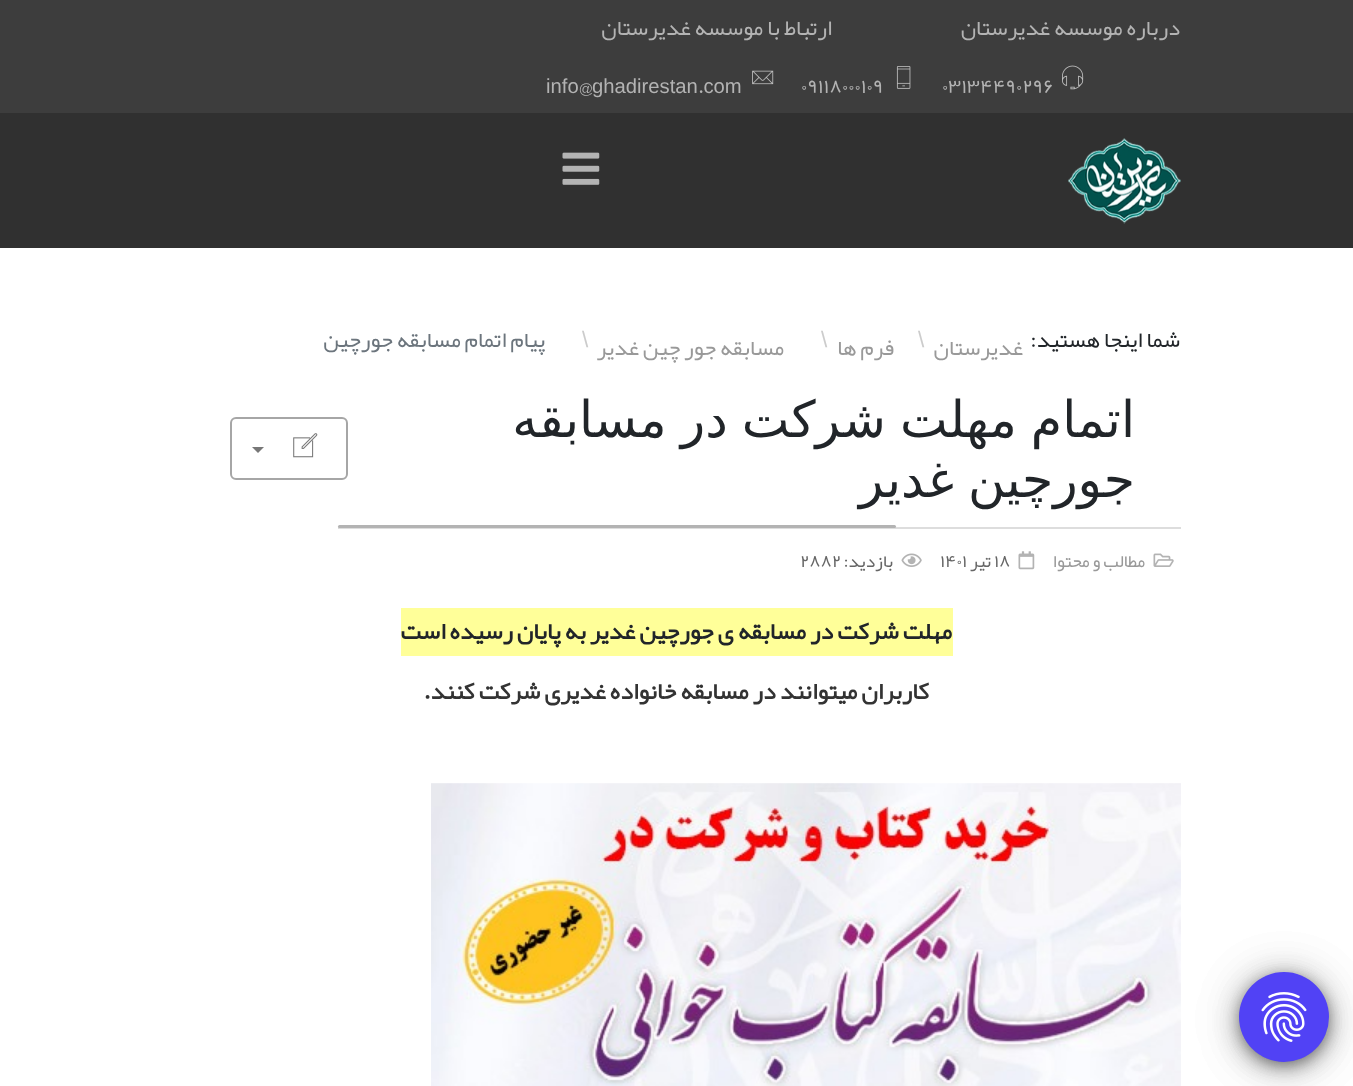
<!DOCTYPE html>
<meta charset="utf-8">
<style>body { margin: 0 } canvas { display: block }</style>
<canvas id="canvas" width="1353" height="1086"></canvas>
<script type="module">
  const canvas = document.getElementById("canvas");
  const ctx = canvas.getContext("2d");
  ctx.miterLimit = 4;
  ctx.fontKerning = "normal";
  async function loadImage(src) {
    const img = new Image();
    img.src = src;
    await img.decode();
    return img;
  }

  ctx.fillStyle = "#ffffff";
  ctx.fillRect(0, 0, 1353, 1086);
  ctx.fillStyle = "#3d3d3d";
  ctx.fillRect(0, 0, 1353, 113);
  ctx.direction = "rtl";
  ctx.font = "22.5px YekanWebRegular";
  ctx.fillStyle = "#b3b3b3";
  ctx.fillText("درباره موسسه غدیرستان", 1180, 35);
  ctx.fillStyle = "rgba(0, 0, 0, 0.2)";
  ctx.filter = "blur(7px)";
  ctx.beginPath();
  ctx.roundRect(1241, 977, 87, 87, 43.5);
  ctx.fill();
  ctx.filter = "none";
  ctx.drawImage(await loadImage("img11.png"), 431, 783, 750, 303);
  ctx.fillStyle = "rgba(0, 0, 0, 0.12)";
  ctx.filter = "blur(24px)";
  ctx.beginPath();
  ctx.roundRect(1239, 974, 90, 90, 45);
  ctx.fill();
  ctx.filter = "none";
  ctx.fillStyle = "rgba(0, 0, 0, 0.14)";
  ctx.filter = "blur(13px)";
  ctx.beginPath();
  ctx.roundRect(1239, 978, 90, 90, 45);
  ctx.fill();
  ctx.filter = "none";
  ctx.fillStyle = "rgba(0, 0, 0, 0.2)";
  ctx.filter = "blur(7px)";
  ctx.beginPath();
  ctx.roundRect(1241, 977, 87, 87, 43.5);
  ctx.fill();
  ctx.filter = "none";
  ctx.fillStyle = "rgba(0, 0, 0, 0.12)";
  ctx.filter = "blur(24px)";
  ctx.beginPath();
  ctx.roundRect(1239, 974, 90, 90, 45);
  ctx.fill();
  ctx.filter = "none";
  ctx.fillStyle = "rgba(0, 0, 0, 0.14)";
  ctx.filter = "blur(13px)";
  ctx.beginPath();
  ctx.roundRect(1239, 978, 90, 90, 45);
  ctx.fill();
  ctx.filter = "none";
  ctx.fillStyle = "#5142f5";
  ctx.beginPath();
  ctx.arc(1284, 1017, 45, 0, Math.PI * 2);
  ctx.fill();
  ctx.drawImage(await loadImage("img1.png"), 1261, 992, 46, 50);
  ctx.fillStyle = "#b3b3b3";
  ctx.fillText("ارتباط با موسسه غدیرستان", 832, 35);
  ctx.drawImage(await loadImage("img2.png"), 1062, 65, 22, 25);
  ctx.direction = "ltr";
  ctx.font = "20.25px YekanWebRegular";
  ctx.fillText("۰٣١٣۴۴٩۰٢٩۶", 942, 93);
  ctx.drawImage(await loadImage("img3.png"), 896, 66, 15, 23);
  ctx.fillText("۰٩١١٨۰۰۰١۰٩", 801, 93);
  ctx.drawImage(await loadImage("img4.png"), 752, 70, 22, 15);
  ctx.font = "20.25px Liberation Sans";
  ctx.fillText("ghadirestan com", 592, 93);
  ctx.font = "20.25px YekanWebRegular";
  ctx.fillText("@", 579, 93);
  ctx.font = "20.25px Liberation Sans";
  ctx.fillText("info", 546, 93);
  ctx.font = "20.25px YekanWebRegular";
  ctx.fillText(".", 698, 93);
  ctx.fillStyle = "#303030";
  ctx.fillRect(0, 113, 1353, 135);
  ctx.drawImage(await loadImage("img5.png"), 1068, 138, 113, 86);
  ctx.drawImage(await loadImage("img6.png"), 562, 152, 38, 33);
  ctx.direction = "rtl";
  ctx.font = "22.5px YekanWebRegular";
  ctx.fillStyle = "#212529";
  ctx.fillText("شما اینجا هستید:", 1180, 347);
  ctx.direction = "ltr";
  ctx.font = "22.5px Liberation Sans";
  ctx.fillStyle = "#cccccc";
  ctx.fillText("\\", 918, 347);
  ctx.direction = "rtl";
  ctx.font = "22.5px YekanWebRegular";
  ctx.fillStyle = "#999999";
  ctx.fillText("غدیرستان", 1023, 355);
  ctx.fillText("فرم ها", 894, 355);
  ctx.direction = "ltr";
  ctx.font = "22.5px Liberation Sans";
  ctx.fillStyle = "#cccccc";
  ctx.fillText("\\", 821, 347);
  ctx.fillText("\\", 582, 347);
  ctx.direction = "rtl";
  ctx.font = "22.5px YekanWebRegular";
  ctx.fillStyle = "#999999";
  ctx.fillText("مسابقه جور چین غدیر", 784, 355);
  ctx.fillStyle = "#6c757d";
  ctx.fillText("پیام اتمام مسابقه جورچین", 545, 347);
  ctx.fillStyle = "#dddddd";
  ctx.fillRect(338, 527, 843, 2);
  ctx.wordSpacing = "-2px";
  ctx.font = "50.6px DejaVu Sans";
  ctx.fillStyle = "#212529";
  ctx.fillText("اتمام مهلت شرکت در مسابقه", 1135, 437);
  ctx.fillText("جورچین غدیر", 1135, 497);
  ctx.fillStyle = "#b3b3b3";
  ctx.beginPath();
  ctx.roundRect(338, 525, 558, 3, 1.5);
  ctx.fill();
  ctx.beginPath();
  ctx.roundRect(231, 418, 116, 61, 5);
  ctx.strokeStyle = "#a6a6a6";
  ctx.lineWidth = 2;
  ctx.stroke();
  ctx.drawImage(await loadImage("img7.png"), 293, 433, 25, 25);
  ctx.fillStyle = "#777777";
  ctx.beginPath();
  ctx.moveTo(252, 447);
  ctx.lineTo(264, 447);
  ctx.lineTo(258, 453);
  ctx.closePath();
  ctx.fill();
  ctx.drawImage(await loadImage("img8.png"), 1153, 553, 21, 14);
  ctx.wordSpacing = "0px";
  ctx.font = "18px YekanWebRegular";
  ctx.fillStyle = "#999999";
  ctx.fillText("مطالب و محتوا", 1145, 567);
  ctx.drawImage(await loadImage("img9.png"), 1018, 551, 17, 19);
  ctx.direction = "ltr";
  ctx.fillStyle = "#666666";
  ctx.fillText("١٨", 994, 567);
  ctx.direction = "rtl";
  ctx.fillText("تیر", 991, 567);
  ctx.direction = "ltr";
  ctx.fillText("١۴۰١", 940, 567);
  ctx.drawImage(await loadImage("img10.png"), 901, 553, 21, 14);
  ctx.direction = "rtl";
  ctx.fillText("بازدید:", 893, 567);
  ctx.direction = "ltr";
  ctx.fillText("٢٨٨٢", 800, 567);
  ctx.fillStyle = "#ffff99";
  ctx.fillRect(401, 608, 552, 48);
  ctx.direction = "rtl";
  ctx.font = "bold 24px YekanWebRegular";
  ctx.fillStyle = "#212529";
  ctx.fillText("مهلت شرکت در مسابقه ی جورچین غدیر به پایان رسیده است", 952, 639);
  ctx.fillStyle = "#333333";
  ctx.fillText("کاربران میتوانند در مسابقه خانواده غدیری شرکت کنند.", 929, 699);
</script>
